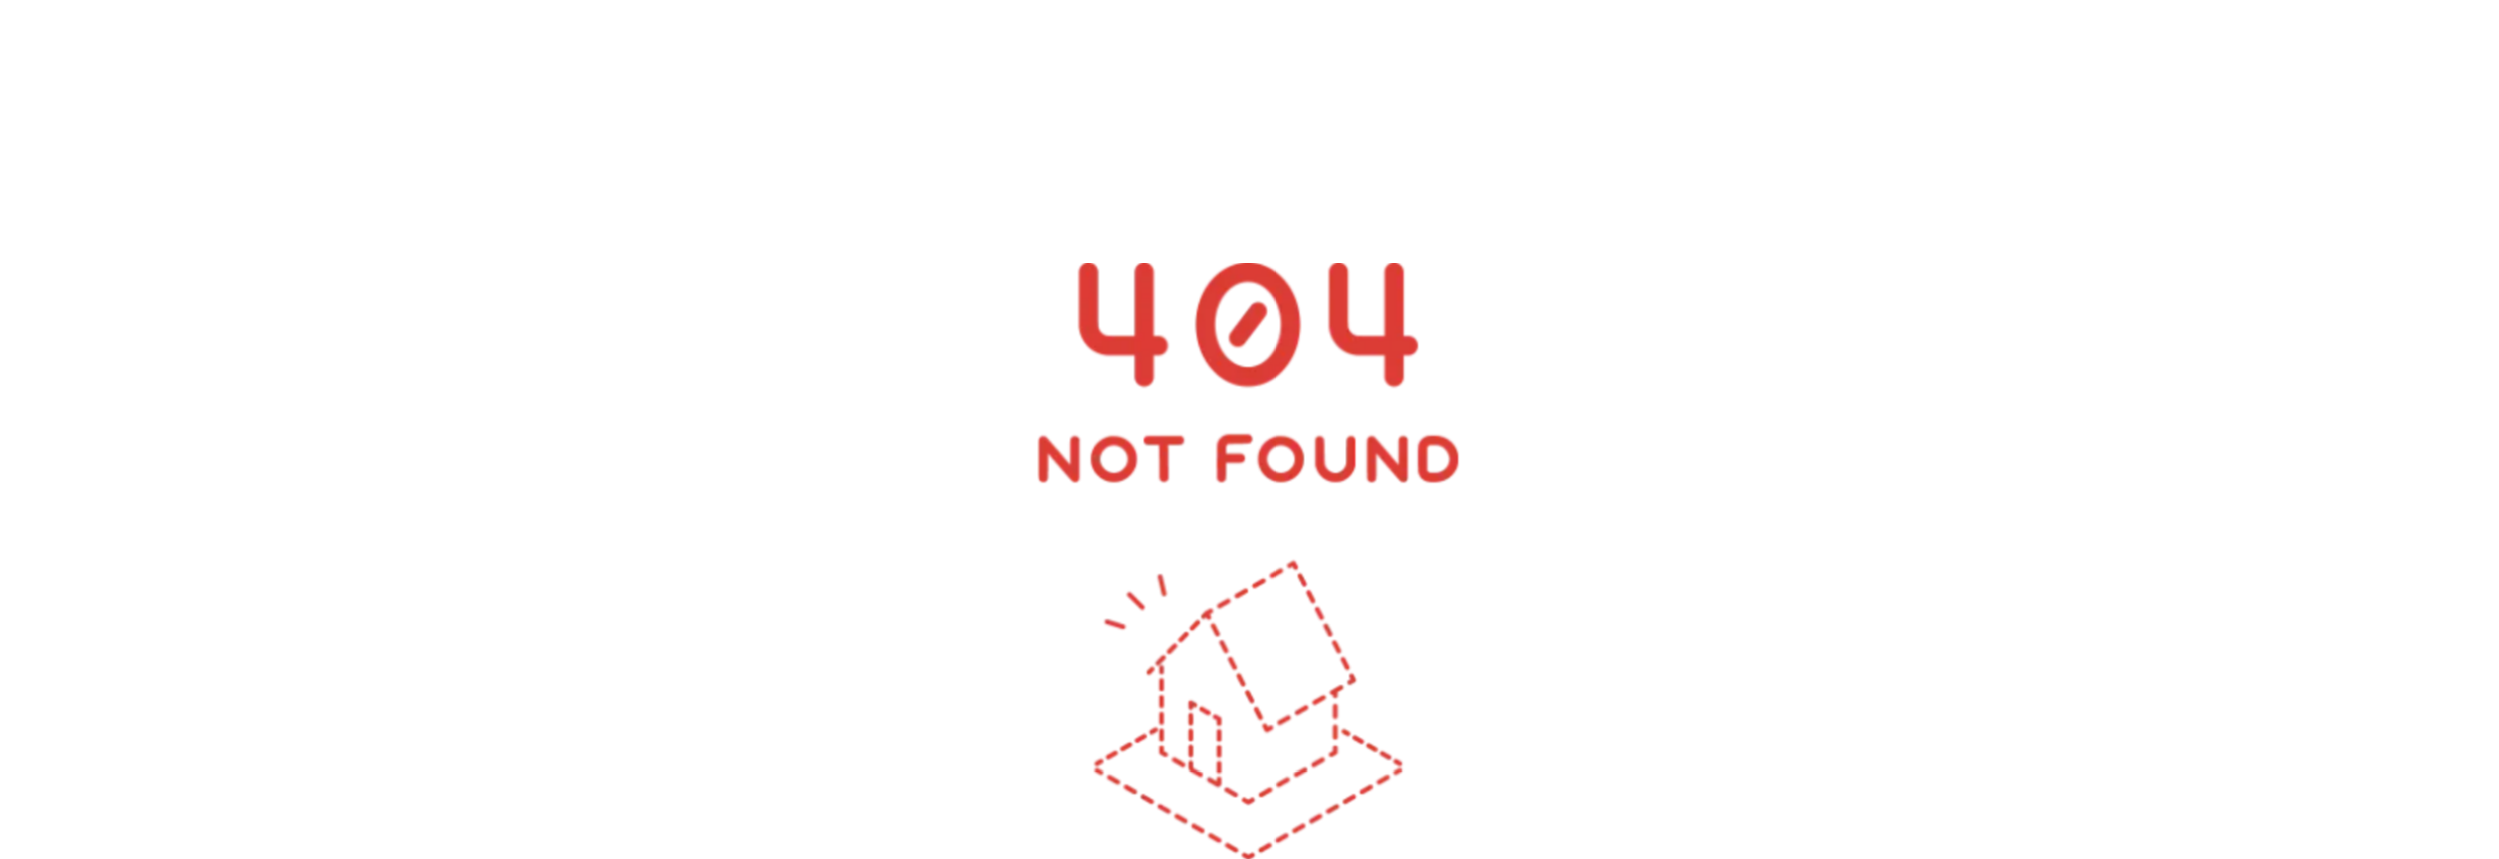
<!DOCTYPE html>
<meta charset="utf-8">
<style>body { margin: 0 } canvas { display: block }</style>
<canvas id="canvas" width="2499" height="859"></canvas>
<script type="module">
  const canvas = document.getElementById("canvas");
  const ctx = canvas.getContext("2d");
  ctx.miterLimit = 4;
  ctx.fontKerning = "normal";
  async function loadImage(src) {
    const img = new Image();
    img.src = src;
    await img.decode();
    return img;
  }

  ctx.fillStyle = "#ffffff";
  ctx.fillRect(0, 0, 2499, 859);
  ctx.drawImage(await loadImage("img1.png"), 1037, 263, 423, 596);
</script>
